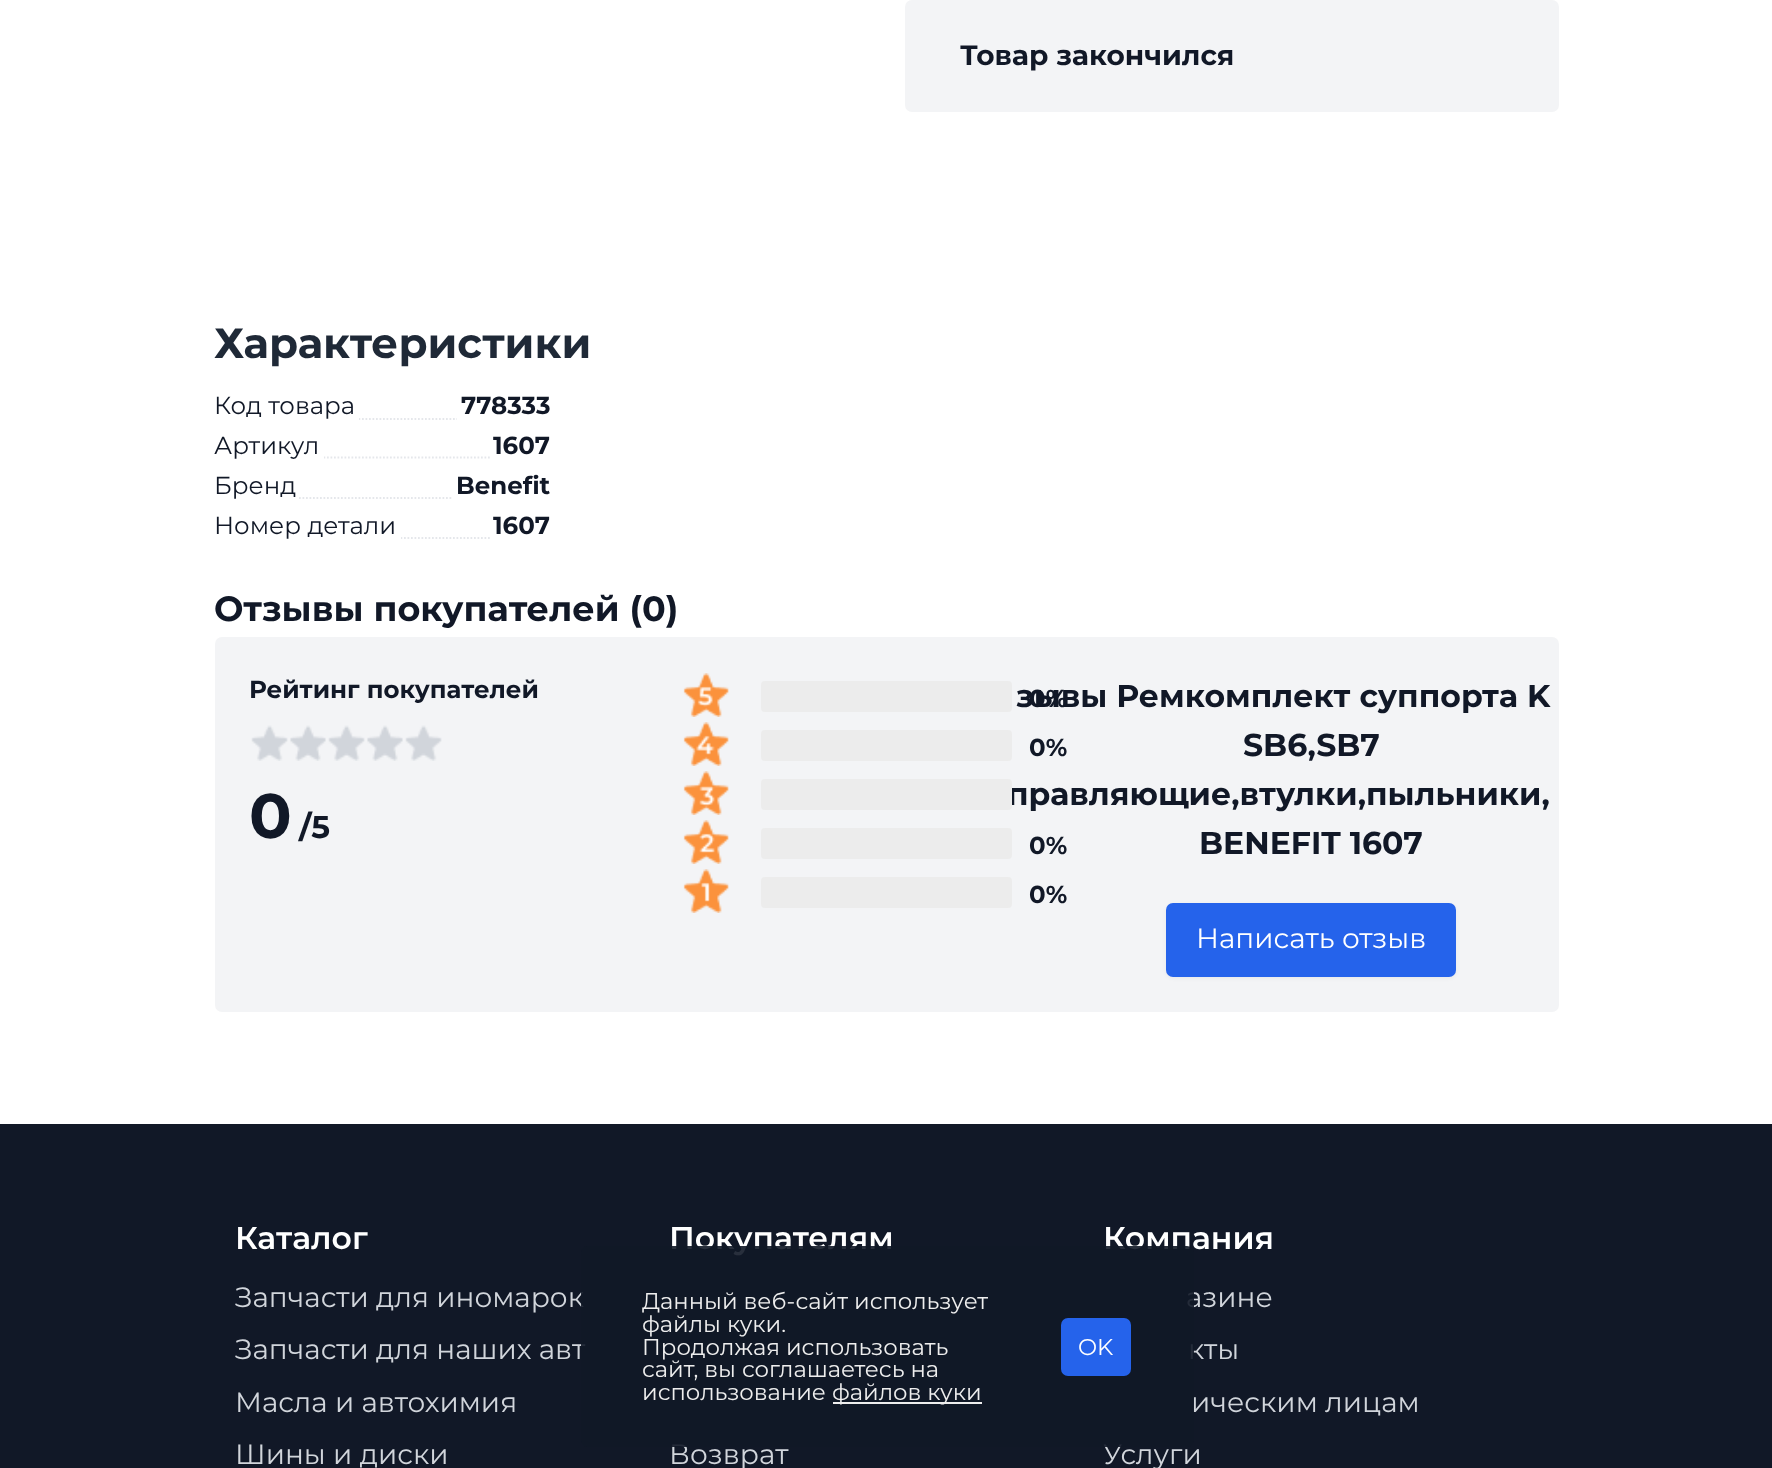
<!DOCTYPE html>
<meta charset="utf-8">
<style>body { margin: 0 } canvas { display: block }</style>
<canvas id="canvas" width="1772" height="1468"></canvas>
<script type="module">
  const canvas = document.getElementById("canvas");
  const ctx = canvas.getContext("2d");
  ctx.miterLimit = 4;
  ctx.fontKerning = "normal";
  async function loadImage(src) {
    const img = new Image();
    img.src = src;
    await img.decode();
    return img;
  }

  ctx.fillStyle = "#ffffff";
  ctx.fillRect(0, 0, 1772, 1468);
  ctx.fillStyle = "#f3f4f6";
  ctx.beginPath();
  ctx.roundRect(905, 0, 654, 112, 7);
  ctx.fill();
  ctx.font = "bold 28px Montserrat";
  ctx.fillStyle = "#111827";
  ctx.fillText("Товар закончился", 960, 65);
  ctx.font = "bold 42px Montserrat";
  ctx.fillStyle = "#1f2937";
  ctx.fillText("Характеристики", 214, 358);
  ctx.beginPath();
  ctx.moveTo(215, 419);
  ctx.lineTo(551, 419);
  ctx.strokeStyle = "#e5e7eb";
  ctx.lineWidth = 1.8;
  ctx.setLineDash([1.75, 1.75]);
  ctx.stroke();
  ctx.fillStyle = "#ffffff";
  ctx.fillRect(215, 418, 144, 2);
  ctx.font = "24.5px Montserrat";
  ctx.fillStyle = "#111827";
  ctx.fillText("Код товара", 214, 414);
  ctx.fillStyle = "#ffffff";
  ctx.fillRect(457, 418, 93, 2);
  ctx.font = "bold 24.5px Montserrat";
  ctx.fillStyle = "#111827";
  ctx.fillText("778333", 461, 414);
  ctx.beginPath();
  ctx.moveTo(215, 457.5);
  ctx.lineTo(551, 457.5);
  ctx.stroke();
  ctx.fillStyle = "#ffffff";
  ctx.fillRect(215, 456, 109, 3);
  ctx.font = "24.5px Montserrat";
  ctx.fillStyle = "#111827";
  ctx.fillText("Артикул", 214, 454);
  ctx.fillStyle = "#ffffff";
  ctx.fillRect(491, 456, 59, 3);
  ctx.font = "bold 24.5px Montserrat";
  ctx.fillStyle = "#111827";
  ctx.fillText("1607", 493, 454);
  ctx.beginPath();
  ctx.moveTo(215, 498);
  ctx.lineTo(551, 498);
  ctx.stroke();
  ctx.fillStyle = "#ffffff";
  ctx.fillRect(215, 497, 83, 2);
  ctx.font = "24.5px Montserrat";
  ctx.fillStyle = "#111827";
  ctx.fillText("Бренд", 214, 494);
  ctx.fillStyle = "#ffffff";
  ctx.fillRect(453, 497, 97, 2);
  ctx.font = "bold 24.5px Montserrat";
  ctx.fillStyle = "#111827";
  ctx.fillText("Benefit", 456, 494);
  ctx.beginPath();
  ctx.moveTo(215, 538);
  ctx.lineTo(551, 538);
  ctx.stroke();
  ctx.fillStyle = "#ffffff";
  ctx.fillRect(215, 537, 186, 2);
  ctx.font = "24.5px Montserrat";
  ctx.fillStyle = "#111827";
  ctx.fillText("Номер детали", 214, 534);
  ctx.fillStyle = "#ffffff";
  ctx.fillRect(491, 537, 59, 2);
  ctx.font = "bold 24.5px Montserrat";
  ctx.fillStyle = "#111827";
  ctx.fillText("1607", 493, 534);
  ctx.font = "bold 35px Montserrat";
  ctx.fillText("Отзывы покупателей (0)", 214, 621);
  ctx.fillStyle = "#f3f4f6";
  ctx.beginPath();
  ctx.roundRect(215, 637, 1344, 375, 7);
  ctx.fill();
  ctx.font = "bold 24.5px Montserrat";
  ctx.fillStyle = "#111827";
  ctx.fillText("Рейтинг покупателей", 249, 698);
  ctx.drawImage(await loadImage("img1.png"), 251, 725, 191, 36);
  ctx.font = "bold 63px Montserrat";
  ctx.fillText("0", 249, 838);
  ctx.font = "bold 31.5px Montserrat";
  ctx.fillText("/5", 299, 838);
  ctx.drawImage(await loadImage("img2.png"), 683, 673, 46, 44);
  ctx.fillStyle = "#ececec";
  ctx.beginPath();
  ctx.roundRect(761, 681, 251, 31, 4);
  ctx.fill();
  ctx.fillStyle = "#111827";
  ctx.fillText("зывы Ремкомплект суппорта K", 1016, 707);
  ctx.font = "bold 24.5px Montserrat";
  ctx.fillText("0%", 1029, 707);
  ctx.drawImage(await loadImage("img3.png"), 683, 722, 46, 44);
  ctx.fillStyle = "#ececec";
  ctx.beginPath();
  ctx.roundRect(761, 730, 251, 31, 4);
  ctx.fill();
  ctx.fillStyle = "#111827";
  ctx.fillText("0%", 1029, 756);
  ctx.drawImage(await loadImage("img4.png"), 683, 771, 46, 44);
  ctx.font = "bold 31.5px Montserrat";
  ctx.fillText("правляющие,втулки,пыльники,", 1007, 805);
  ctx.fillStyle = "#ececec";
  ctx.beginPath();
  ctx.roundRect(761, 779, 251, 31, 4);
  ctx.fill();
  ctx.drawImage(await loadImage("img5.png"), 683, 820, 46, 44);
  ctx.beginPath();
  ctx.roundRect(761, 828, 251, 31, 4);
  ctx.fill();
  ctx.font = "bold 24.5px Montserrat";
  ctx.fillStyle = "#111827";
  ctx.fillText("0%", 1029, 854);
  ctx.drawImage(await loadImage("img6.png"), 683, 869, 46, 44);
  ctx.fillStyle = "#ececec";
  ctx.beginPath();
  ctx.roundRect(761, 877, 251, 31, 4);
  ctx.fill();
  ctx.fillStyle = "#111827";
  ctx.fillText("0%", 1029, 903);
  ctx.font = "bold 31.5px Montserrat";
  ctx.fillText("SB6,SB7", 1243, 756);
  ctx.fillText("BENEFIT 1607", 1199, 854);
  ctx.fillStyle = "rgba(0, 0, 0, 0.05)";
  ctx.filter = "blur(2px)";
  ctx.beginPath();
  ctx.roundRect(1166, 905, 290, 73, 7);
  ctx.fill();
  ctx.filter = "none";
  ctx.fillStyle = "#2563eb";
  ctx.beginPath();
  ctx.roundRect(1166, 903, 290, 74, 7);
  ctx.fill();
  ctx.font = "28px Montserrat";
  ctx.fillStyle = "#ffffff";
  ctx.fillText("Написать отзыв", 1196, 948);
  ctx.fillStyle = "#111827";
  ctx.fillRect(0, 1124, 1772, 344);
  ctx.font = "600 31.5px Montserrat";
  ctx.fillStyle = "#ffffff";
  ctx.fillText("Каталог", 235, 1249);
  ctx.font = "28px Montserrat";
  ctx.fillStyle = "#d1d5db";
  ctx.fillText("Запчасти для иномарок", 235, 1307);
  ctx.fillText("Запчасти для наших авт", 235, 1359);
  ctx.fillText("Масла и автохимия", 235, 1412);
  ctx.fillText("Шины и диски", 235, 1464);
  ctx.font = "600 31.5px Montserrat";
  ctx.fillStyle = "#ffffff";
  ctx.fillText("Покупателям", 669, 1249);
  ctx.font = "28px Montserrat";
  ctx.fillStyle = "#d1d5db";
  ctx.fillText("Возврат", 669, 1464);
  ctx.font = "600 31.5px Montserrat";
  ctx.fillStyle = "#ffffff";
  ctx.fillText("Компания", 1103, 1249);
  ctx.font = "28px Montserrat";
  ctx.fillStyle = "#d1d5db";
  ctx.fillText("азине", 1186, 1307);
  ctx.fillText("кты", 1188, 1359);
  ctx.fillText("ическим лицам", 1191, 1412);
  ctx.fillText("Услуги", 1103, 1464);
  ctx.fillStyle = "rgba(17, 24, 39, 0.9)";
  ctx.beginPath();
  ctx.roundRect(581, 1246, 613, 201, 7);
  ctx.fill();
  ctx.font = "22.75px Montserrat";
  ctx.fillStyle = "#eeeeee";
  ctx.fillText("Данный веб-сайт использует", 642, 1309);
  ctx.fillText("файлы куки.", 642, 1332);
  ctx.fillText("Продолжая использовать", 642, 1355);
  ctx.fillText("сайт, вы соглашаетесь на", 642, 1377);
  ctx.fillText("использование", 642, 1400);
  ctx.fillRect(833, 1402, 149, 2);
  ctx.fillText("файлов куки", 832, 1400);
  ctx.fillStyle = "#2563eb";
  ctx.beginPath();
  ctx.roundRect(1061, 1318, 70, 58, 7);
  ctx.fill();
  ctx.fillStyle = "#ffffff";
  ctx.fillText("OK", 1078, 1355);
</script>
